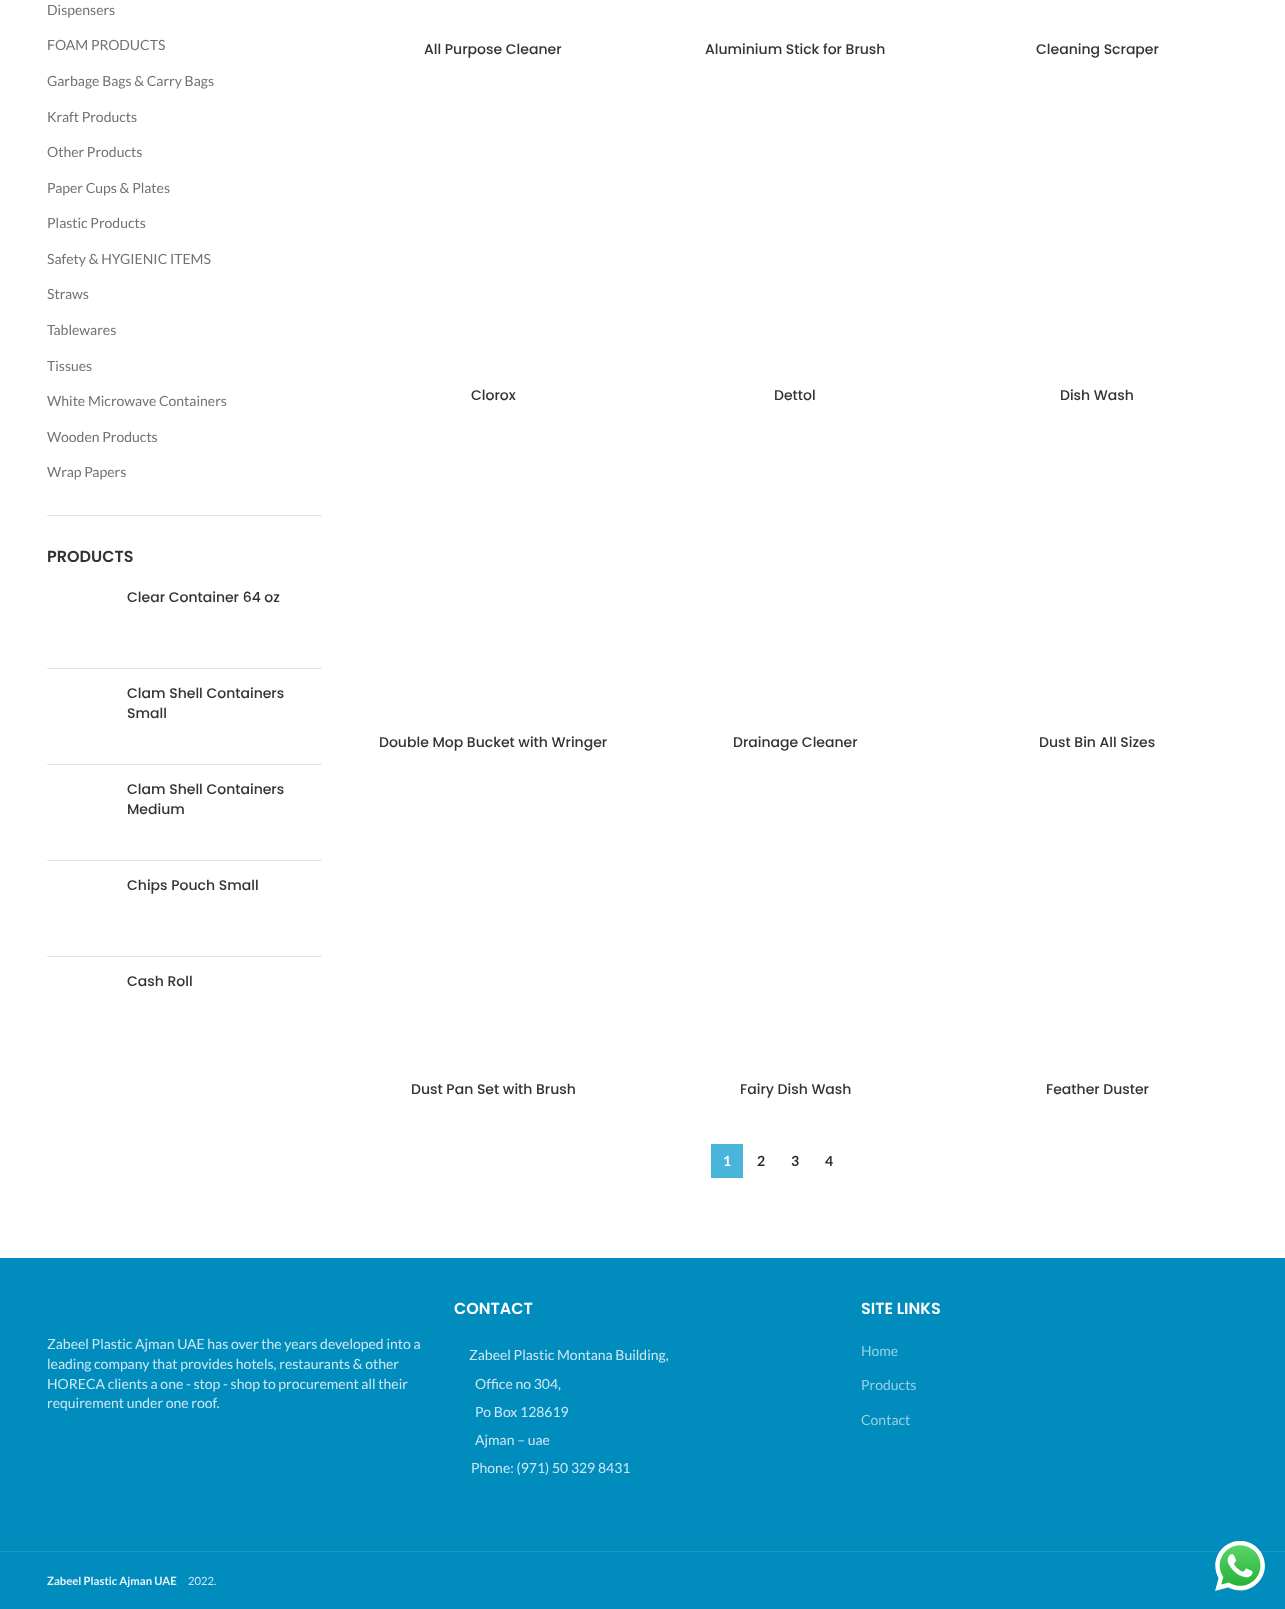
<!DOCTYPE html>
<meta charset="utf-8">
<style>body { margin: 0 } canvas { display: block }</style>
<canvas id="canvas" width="1285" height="1609"></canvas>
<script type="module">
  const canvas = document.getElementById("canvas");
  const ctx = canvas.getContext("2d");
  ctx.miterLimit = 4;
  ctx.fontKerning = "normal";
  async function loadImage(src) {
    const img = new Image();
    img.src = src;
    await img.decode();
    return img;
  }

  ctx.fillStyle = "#ffffff";
  ctx.fillRect(0, 0, 1285, 1609);
  ctx.fillStyle = "#e4e4e4";
  ctx.fillRect(47, 515, 275, 1);
  ctx.font = "14px Lato";
  ctx.fillStyle = "#727272";
  ctx.fillText("Dispensers", 47, 15);
  ctx.fillText("FOAM PRODUCTS", 47, 50);
  ctx.fillText("Garbage Bags & Carry Bags", 47, 86);
  ctx.fillText("Kraft Products", 47, 122);
  ctx.fillText("Other Products", 47, 157);
  ctx.fillText("Paper Cups & Plates", 47, 193);
  ctx.fillText("Plastic Products", 47, 228);
  ctx.fillText("Safety & HYGIENIC ITEMS", 47, 264);
  ctx.fillText("Straws", 47, 299);
  ctx.fillText("Tablewares", 47, 335);
  ctx.fillText("Tissues", 47, 371);
  ctx.fillText("White Microwave Containers", 47, 406);
  ctx.fillText("Wooden Products", 47, 442);
  ctx.fillText("Wrap Papers", 47, 477);
  ctx.font = "600 16px Poppins";
  ctx.fillStyle = "#333333";
  ctx.fillText("PRODUCTS", 47, 562);
  ctx.fillStyle = "#e4e4e4";
  ctx.fillRect(47, 668, 275, 1);
  ctx.font = "500 14px Poppins";
  ctx.fillStyle = "#333333";
  ctx.fillText("Clear Container 64 oz", 127, 602);
  ctx.fillStyle = "#e4e4e4";
  ctx.fillRect(47, 764, 275, 1);
  ctx.fillStyle = "#333333";
  ctx.fillText("Clam Shell Containers", 127, 698);
  ctx.fillText("Small", 127, 718);
  ctx.fillStyle = "#e4e4e4";
  ctx.fillRect(47, 860, 275, 1);
  ctx.fillStyle = "#333333";
  ctx.fillText("Clam Shell Containers", 127, 794);
  ctx.fillText("Medium", 127, 814);
  ctx.fillStyle = "#e4e4e4";
  ctx.fillRect(47, 956, 275, 1);
  ctx.fillStyle = "#333333";
  ctx.fillText("Chips Pouch Small", 127, 890);
  ctx.fillText("Cash Roll", 127, 986);
  ctx.fillText("All Purpose Cleaner", 424, 54);
  ctx.fillText("Aluminium Stick for Brush", 705, 54);
  ctx.fillText("Cleaning Scraper", 1036, 54);
  ctx.fillText("Clorox", 471, 400);
  ctx.fillText("Dettol", 774, 400);
  ctx.fillText("Dish Wash", 1060, 400);
  ctx.fillText("Double Mop Bucket with Wringer", 379, 747);
  ctx.fillText("Drainage Cleaner", 733, 747);
  ctx.fillText("Dust Bin All Sizes", 1039, 747);
  ctx.fillText("Dust Pan Set with Brush", 411, 1094);
  ctx.fillText("Fairy Dish Wash", 740, 1094);
  ctx.fillText("Feather Duster", 1046, 1094);
  ctx.fillStyle = "#49b5db";
  ctx.fillRect(711, 1144, 32, 34);
  ctx.font = "bold 14px Lato";
  ctx.fillStyle = "#ffffff";
  ctx.fillText("1", 723, 1166);
  ctx.fillStyle = "#2d2a2a";
  ctx.fillText("2", 757, 1166);
  ctx.fillText("3", 791, 1166);
  ctx.fillText("4", 825, 1166);
  ctx.fillStyle = "#008cbd";
  ctx.fillRect(0, 1258, 1285, 351);
  ctx.font = "14px Lato";
  ctx.fillStyle = "#cce8f2";
  ctx.fillText("Zabeel Plastic Ajman UAE has over the years developed into a", 47, 1349);
  ctx.fillText("leading company that provides hotels, restaurants & other", 47, 1369);
  ctx.fillText("HORECA clients a one - stop - shop to procurement all their", 47, 1389);
  ctx.fillText("requirement under one roof.", 47, 1408);
  ctx.font = "600 16px Poppins";
  ctx.fillStyle = "#ffffff";
  ctx.fillText("CONTACT", 454, 1314);
  ctx.font = "14px Lato";
  ctx.fillStyle = "#cce8f2";
  ctx.fillText("Zabeel Plastic Montana Building,", 469, 1360);
  ctx.fillText("Office no 304,", 475, 1389);
  ctx.fillText("Po Box 128619", 475, 1417);
  ctx.fillText("Ajman – uae", 475, 1445);
  ctx.fillText("Phone: (971) 50 329 8431", 471, 1473);
  ctx.font = "600 16px Poppins";
  ctx.fillStyle = "#ffffff";
  ctx.fillText("SITE LINKS", 861, 1314);
  ctx.font = "14px Lato";
  ctx.fillStyle = "#99d1e5";
  ctx.fillText("Home", 861, 1356);
  ctx.fillText("Products", 861, 1390);
  ctx.fillText("Contact", 861, 1425);
  ctx.fillStyle = "#1a98c4";
  ctx.fillRect(0, 1551, 1285, 1);
  ctx.font = "bold 11.25px Lato";
  ctx.fillStyle = "#e6f4f8";
  ctx.fillText("Zabeel Plastic Ajman UAE", 47, 1585);
  ctx.font = "11.25px Lato";
  ctx.fillStyle = "#cce8f2";
  ctx.fillText("2022.", 188, 1585);
  ctx.drawImage(await loadImage("img1.png"), 1215, 1541, 50, 50);
</script>
